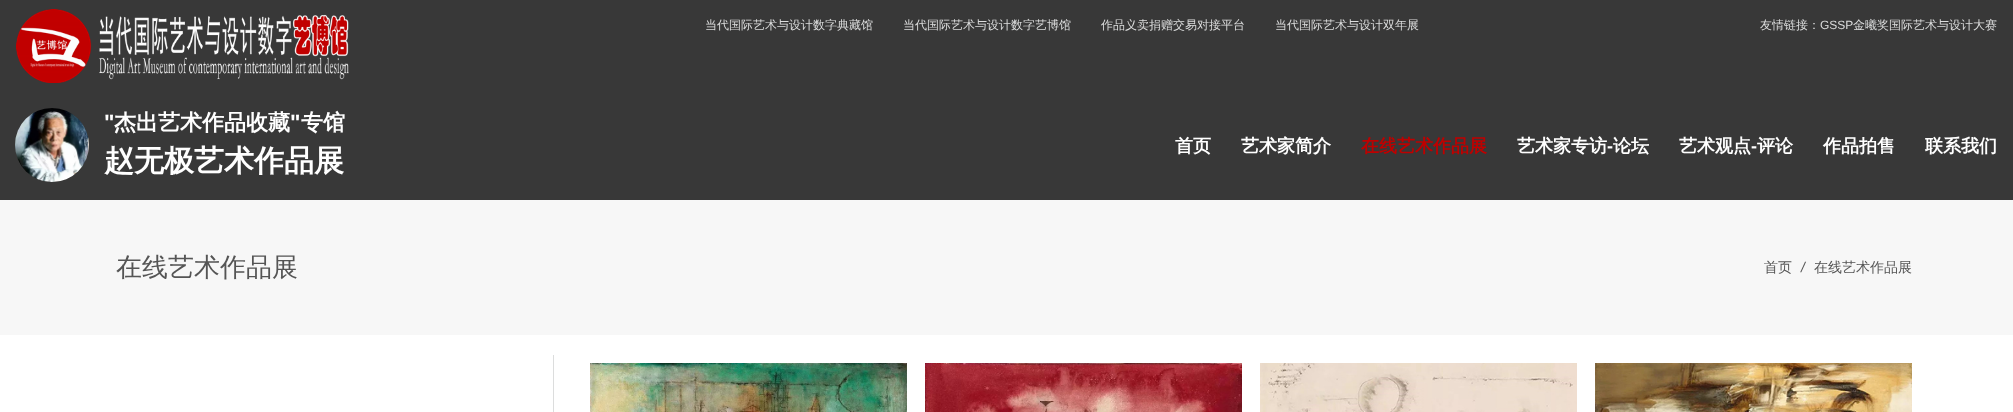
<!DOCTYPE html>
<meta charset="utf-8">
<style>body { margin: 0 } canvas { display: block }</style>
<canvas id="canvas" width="2013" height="412"></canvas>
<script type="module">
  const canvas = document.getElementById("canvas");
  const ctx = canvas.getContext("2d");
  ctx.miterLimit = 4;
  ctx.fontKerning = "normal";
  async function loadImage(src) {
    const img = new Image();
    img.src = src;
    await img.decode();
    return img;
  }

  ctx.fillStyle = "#ffffff";
  ctx.fillRect(0, 0, 2013, 412);
  ctx.fillStyle = "#383838";
  ctx.fillRect(0, 0, 2013, 200);
  ctx.drawImage(await loadImage("img1.png"), 16, 9, 333, 74);
  ctx.font = "500 12px WenQuanYi Zen Hei";
  ctx.fillStyle = "#dcdddd";
  ctx.fillText("当代国际艺术与设计数字典藏馆", 705, 29);
  ctx.fillText("当代国际艺术与设计数字艺博馆", 903, 29);
  ctx.fillText("作品义卖捐赠交易对接平台", 1101, 29);
  ctx.fillText("当代国际艺术与设计双年展", 1275, 29);
  ctx.fillText("友情链接：", 1760, 29);
  ctx.font = "12px Liberation Sans";
  ctx.fillText("GSSP", 1820, 29);
  ctx.font = "500 12px WenQuanYi Zen Hei";
  ctx.fillText("金曦奖国际艺术与设计大赛", 1853, 29);
  ctx.drawImage(await loadImage("img2.png"), 15, 108, 74, 74);
  ctx.font = "bold 22px Liberation Sans";
  ctx.fillStyle = "#ffffff";
  ctx.fillText("\"", 104, 130);
  ctx.font = "bold 22px WenQuanYi Zen Hei";
  ctx.fillText("杰出艺术作品收藏", 114, 130);
  ctx.font = "bold 22px Liberation Sans";
  ctx.fillText("\"", 290, 130);
  ctx.font = "bold 22px WenQuanYi Zen Hei";
  ctx.fillText("专馆", 301, 130);
  ctx.font = "bold 30px WenQuanYi Zen Hei";
  ctx.fillText("赵无极艺术作品展", 104, 171);
  ctx.font = "bold 18px WenQuanYi Zen Hei";
  ctx.fillText("首页", 1175, 152);
  ctx.fillText("艺术家简介", 1241, 152);
  ctx.fillStyle = "#be0100";
  ctx.fillText("在线艺术作品展", 1361, 152);
  ctx.fillStyle = "#ffffff";
  ctx.fillText("艺术家专访", 1517, 152);
  ctx.font = "bold 18px Liberation Sans";
  ctx.fillText("-", 1607, 152);
  ctx.font = "bold 18px WenQuanYi Zen Hei";
  ctx.fillText("论坛", 1613, 152);
  ctx.fillText("艺术观点", 1679, 152);
  ctx.font = "bold 18px Liberation Sans";
  ctx.fillText("-", 1751, 152);
  ctx.font = "bold 18px WenQuanYi Zen Hei";
  ctx.fillText("评论", 1757, 152);
  ctx.fillText("作品拍售", 1823, 152);
  ctx.fillText("联系我们", 1925, 152);
  ctx.fillStyle = "#f7f7f7";
  ctx.fillRect(0, 200, 2013, 135);
  ctx.font = "500 26px WenQuanYi Zen Hei";
  ctx.fillStyle = "#555555";
  ctx.fillText("在线艺术作品展", 116, 276);
  ctx.font = "500 14px WenQuanYi Zen Hei";
  ctx.fillText("首页", 1764, 272);
  ctx.font = "italic 14px Liberation Sans";
  ctx.fillText("/", 1801, 272);
  ctx.font = "500 14px WenQuanYi Zen Hei";
  ctx.fillText("在线艺术作品展", 1814, 272);
  ctx.fillStyle = "#dcdddd";
  ctx.fillRect(553, 355, 1, 57);
  ctx.drawImage(await loadImage("img3.png"), 590, 363, 317, 49);
  ctx.drawImage(await loadImage("img4.png"), 925, 363, 317, 49);
  ctx.drawImage(await loadImage("img5.png"), 1260, 363, 317, 49);
  ctx.drawImage(await loadImage("img6.png"), 1595, 363, 317, 49);
</script>
